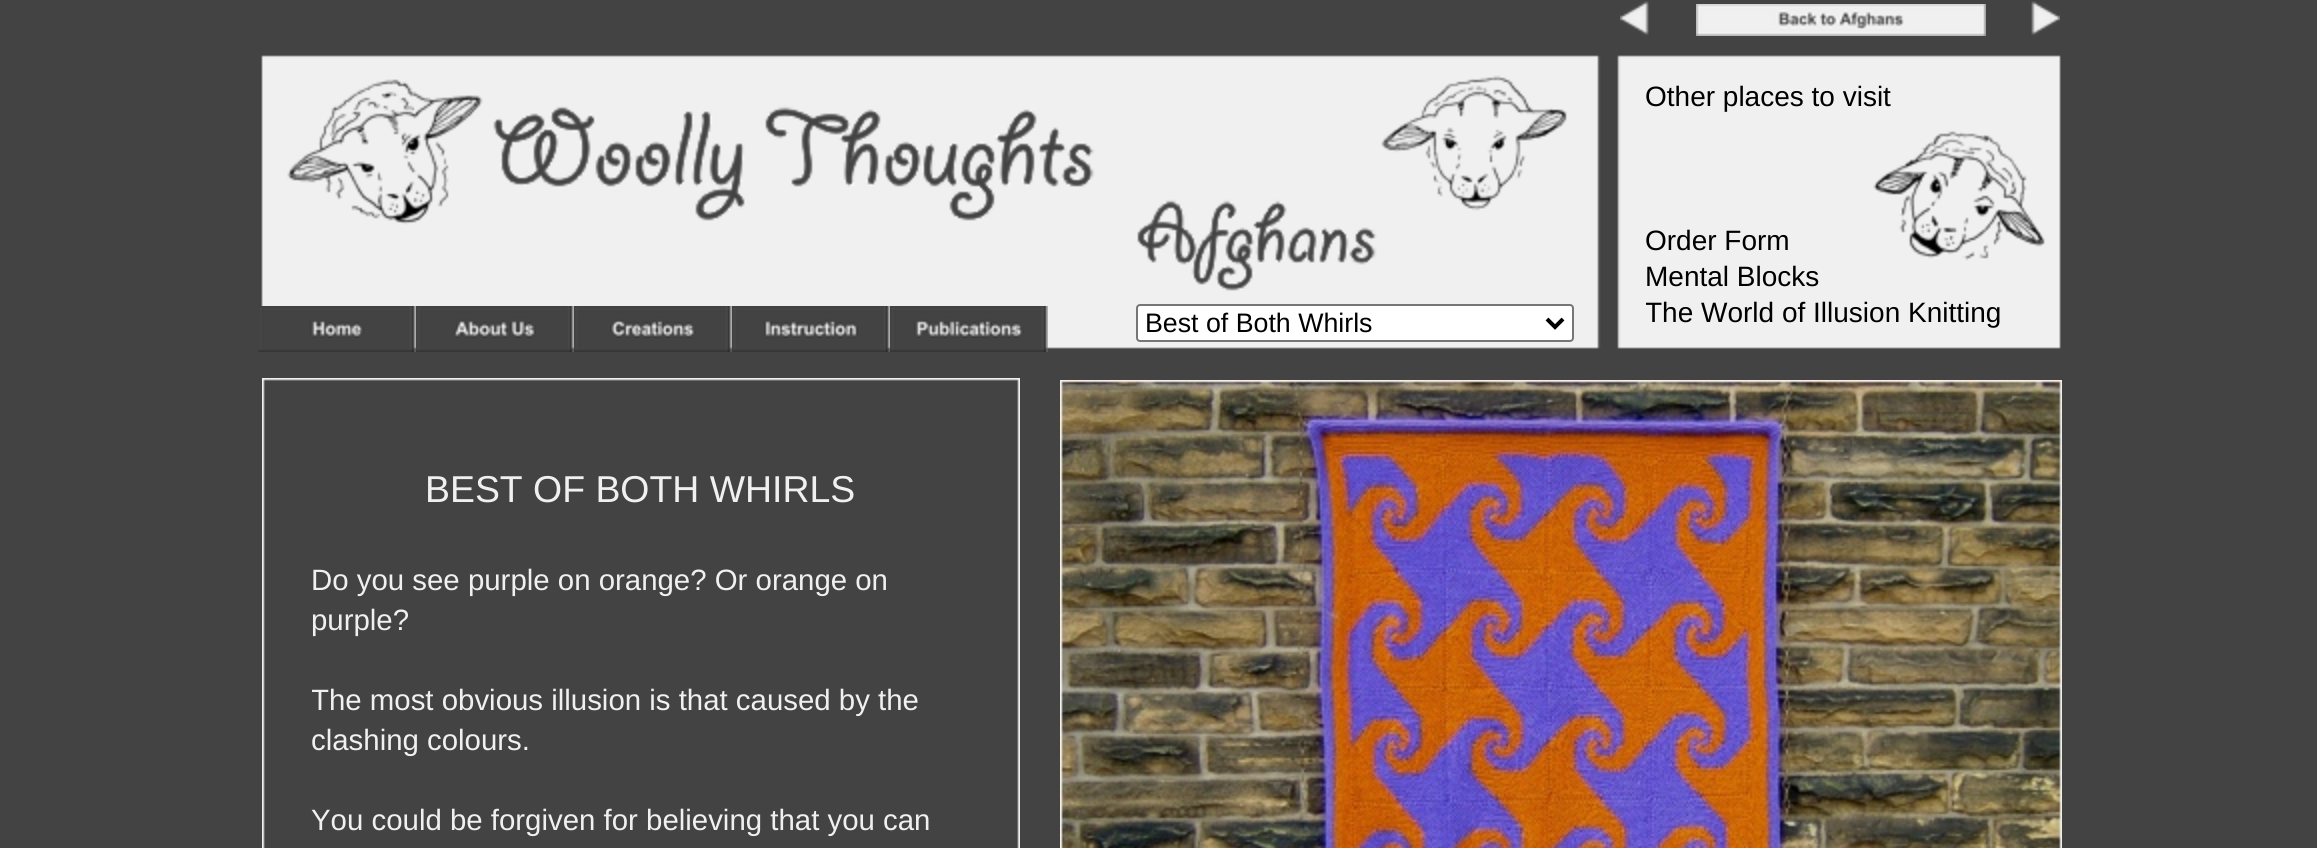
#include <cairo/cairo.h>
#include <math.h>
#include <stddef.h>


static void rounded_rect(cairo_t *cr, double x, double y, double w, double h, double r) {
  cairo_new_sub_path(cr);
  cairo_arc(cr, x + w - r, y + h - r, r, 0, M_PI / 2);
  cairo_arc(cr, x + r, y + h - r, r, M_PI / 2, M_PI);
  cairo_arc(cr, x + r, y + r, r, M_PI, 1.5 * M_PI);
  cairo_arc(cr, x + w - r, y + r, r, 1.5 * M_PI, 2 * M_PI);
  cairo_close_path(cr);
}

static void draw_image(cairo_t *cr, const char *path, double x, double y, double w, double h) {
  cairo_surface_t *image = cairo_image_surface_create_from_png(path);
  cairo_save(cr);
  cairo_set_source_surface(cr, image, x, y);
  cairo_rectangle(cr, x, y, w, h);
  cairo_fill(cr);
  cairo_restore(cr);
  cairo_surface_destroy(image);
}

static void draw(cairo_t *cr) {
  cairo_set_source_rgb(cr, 67 / 255.0, 67 / 255.0, 67 / 255.0);
  cairo_paint(cr);
  draw_image(cr, "images/1.png", 1620, 1, 29, 34);
  draw_image(cr, "images/2.png", 1696, 4, 290, 32);
  draw_image(cr, "images/3.png", 2031, 1, 29, 34);
  draw_image(cr, "images/4.png", 261, 55, 1800, 294);
  draw_image(cr, "images/5.png", 1873, 131, 172, 130);
  draw_image(cr, "images/6.png", 258, 306, 158, 46);
  draw_image(cr, "images/7.png", 416, 306, 158, 46);
  draw_image(cr, "images/8.png", 574, 306, 158, 46);
  draw_image(cr, "images/9.png", 732, 306, 158, 46);
  draw_image(cr, "images/10.png", 890, 306, 158, 46);
  cairo_set_source_rgb(cr, 1, 1, 1);
  rounded_rect(cr, 1137, 305, 436, 36, 3);
  cairo_fill_preserve(cr);
  cairo_set_source_rgb(cr, 118 / 255.0, 118 / 255.0, 118 / 255.0);
  cairo_stroke(cr);
  cairo_new_path(cr);
  cairo_move_to(cr, 1547, 319);
  cairo_line_to(cr, 1555, 327);
  cairo_line_to(cr, 1563, 319);
  cairo_set_source_rgb(cr, 0, 0, 0);
  cairo_set_line_width(cr, 4);
  cairo_stroke(cr);
  draw_image(cr, "images/11.png", 262, 378, 758, 470);
  draw_image(cr, "images/12.png", 1060, 380, 1002, 468);
  cairo_select_font_face(cr, "Liberation Sans", CAIRO_FONT_SLANT_NORMAL, CAIRO_FONT_WEIGHT_NORMAL);
  cairo_set_font_size(cr, 28);
  cairo_move_to(cr, 1645, 106);
  cairo_show_text(cr, "Other places to visit");
  cairo_move_to(cr, 1645, 250);
  cairo_show_text(cr, "Order Form");
  cairo_move_to(cr, 1645, 286);
  cairo_show_text(cr, "Mental Blocks");
  cairo_save(cr);
  cairo_rectangle(cr, 1646, 78, 396, 268);
  cairo_clip(cr);
  cairo_move_to(cr, 1645, 322);
  cairo_show_text(cr, "The World of Illusion Knitting");
  cairo_restore(cr);
  cairo_set_font_size(cr, 26.75);
  cairo_move_to(cr, 1145, 332);
  cairo_show_text(cr, "Best of Both Whirls");
  cairo_set_font_size(cr, 37.4);
  cairo_set_source_rgb(cr, 240 / 255.0, 240 / 255.0, 240 / 255.0);
  cairo_move_to(cr, 425, 502);
  cairo_show_text(cr, "BEST OF BOTH WHIRLS");
  cairo_set_font_size(cr, 29.4);
  cairo_move_to(cr, 311, 590);
  cairo_show_text(cr, "Do you see purple on orange? Or orange on");
  cairo_move_to(cr, 311, 630);
  cairo_show_text(cr, "purple?");
  cairo_save(cr);
  cairo_rectangle(cr, 312, 422, 658, 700);
  cairo_clip(cr);
  cairo_move_to(cr, 311, 710);
  cairo_show_text(cr, "The most obvious illusion is that caused by the");
  cairo_restore(cr);
  cairo_move_to(cr, 311, 750);
  cairo_show_text(cr, "clashing colours.");
  cairo_move_to(cr, 311, 830);
  cairo_show_text(cr, "You could be forgiven for believing that you can");
}

int main(void) {
  cairo_surface_t *surface = cairo_image_surface_create(CAIRO_FORMAT_RGB24, 2317, 848);
  cairo_t *cr = cairo_create(surface);
  cairo_font_options_t *options = cairo_font_options_create();
  cairo_font_options_set_hint_metrics(options, CAIRO_HINT_METRICS_OFF);
  cairo_font_options_set_hint_style(options, CAIRO_HINT_STYLE_NONE);
  cairo_set_font_options(cr, options);
  cairo_set_miter_limit(cr, 4);
  draw(cr);
  cairo_surface_write_to_png(surface, "out.png");
  cairo_font_options_destroy(options);
  cairo_destroy(cr);
  cairo_surface_destroy(surface);
  return 0;
}
